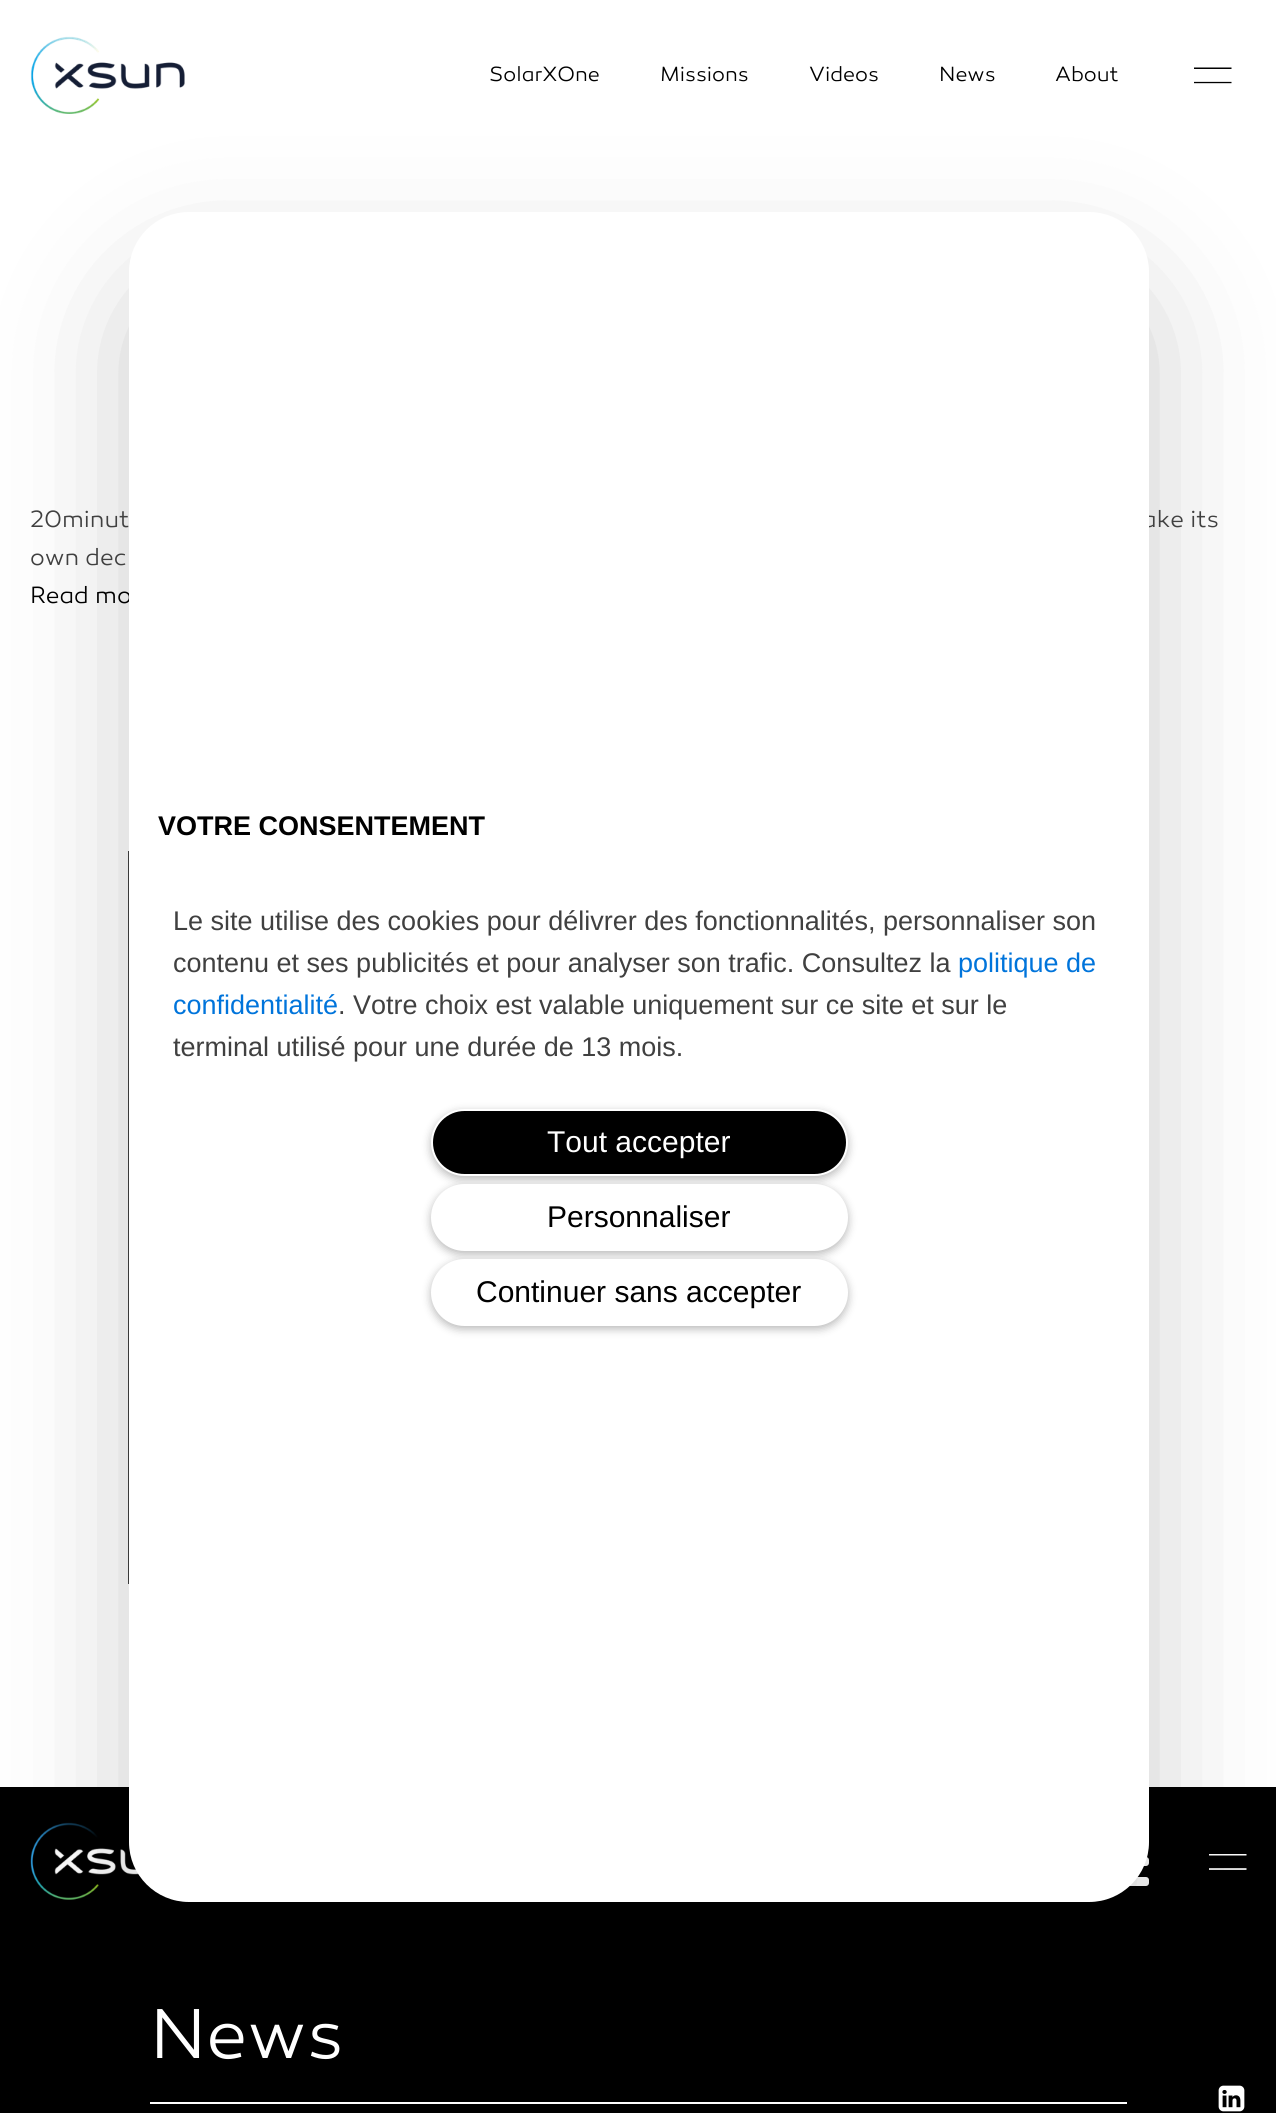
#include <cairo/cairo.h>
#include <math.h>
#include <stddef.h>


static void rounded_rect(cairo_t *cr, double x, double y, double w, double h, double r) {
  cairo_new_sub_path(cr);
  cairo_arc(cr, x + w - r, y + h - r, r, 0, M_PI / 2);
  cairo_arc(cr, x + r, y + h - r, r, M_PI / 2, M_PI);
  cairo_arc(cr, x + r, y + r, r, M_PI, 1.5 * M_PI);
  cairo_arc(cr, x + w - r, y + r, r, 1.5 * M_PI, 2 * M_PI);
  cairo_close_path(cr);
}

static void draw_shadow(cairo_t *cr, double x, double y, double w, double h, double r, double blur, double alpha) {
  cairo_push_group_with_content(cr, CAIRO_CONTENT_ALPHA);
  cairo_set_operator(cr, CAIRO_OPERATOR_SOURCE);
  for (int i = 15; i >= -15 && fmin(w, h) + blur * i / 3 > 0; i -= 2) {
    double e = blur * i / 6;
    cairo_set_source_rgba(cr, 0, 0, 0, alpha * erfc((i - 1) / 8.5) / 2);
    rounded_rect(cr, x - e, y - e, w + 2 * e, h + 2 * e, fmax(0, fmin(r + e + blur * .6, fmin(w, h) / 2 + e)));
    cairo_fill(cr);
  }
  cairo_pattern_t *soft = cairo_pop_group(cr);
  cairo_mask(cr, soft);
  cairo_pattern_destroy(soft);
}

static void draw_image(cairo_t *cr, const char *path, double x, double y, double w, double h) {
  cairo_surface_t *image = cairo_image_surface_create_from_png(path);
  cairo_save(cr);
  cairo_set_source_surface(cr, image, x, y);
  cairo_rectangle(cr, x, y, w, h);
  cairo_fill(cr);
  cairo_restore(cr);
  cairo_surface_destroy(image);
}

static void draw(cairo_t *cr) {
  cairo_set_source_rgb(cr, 1, 1, 1);
  cairo_paint(cr);
  draw_image(cr, "images/1.png", 30, 36, 155, 78);
  draw_image(cr, "images/2.png", 1194, 67, 38, 17);
  cairo_rectangle(cr, 129, 852, 502, 731);
  cairo_set_source_rgb(cr, 64 / 255.0, 64 / 255.0, 64 / 255.0);
  cairo_stroke(cr);
  cairo_set_source_rgb(cr, 0, 0, 0);
  cairo_rectangle(cr, 0, 1787, 1276, 326);
  cairo_fill(cr);
  draw_image(cr, "images/3.png", 30, 1822, 109, 78);
  cairo_set_source_rgb(cr, 1, 1, 1);
  rounded_rect(cr, 1089, 1857, 60, 9, 3);
  cairo_fill(cr);
  rounded_rect(cr, 1089, 1877, 60, 9, 3);
  cairo_fill(cr);
  draw_image(cr, "images/4.png", 1209, 1854, 38, 16);
  cairo_rectangle(cr, 150, 2102, 977, 2);
  cairo_fill(cr);
  draw_image(cr, "images/5.png", 1218, 2085, 27, 27);
  cairo_set_source_rgb(cr, 0, 0, 0);
  draw_shadow(cr, 129, 275, 1020, 1690, 60, 64, 0.2);
  cairo_select_font_face(cr, "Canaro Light", CAIRO_FONT_SLANT_NORMAL, CAIRO_FONT_WEIGHT_NORMAL);
  cairo_set_font_size(cr, 21);
  cairo_set_source_rgb(cr, 0, 0, 0);
  cairo_move_to(cr, 489, 81);
  cairo_show_text(cr, "SolarXOne");
  cairo_move_to(cr, 660, 81);
  cairo_show_text(cr, "Missions");
  cairo_move_to(cr, 809, 81);
  cairo_show_text(cr, "Videos");
  cairo_move_to(cr, 939, 81);
  cairo_show_text(cr, "News");
  cairo_move_to(cr, 1055, 81);
  cairo_show_text(cr, "About");
  cairo_set_font_size(cr, 24);
  cairo_set_source_rgb(cr, 64 / 255.0, 64 / 255.0, 64 / 255.0);
  cairo_move_to(cr, 30, 527);
  cairo_show_text(cr, "20minut");
  cairo_move_to(cr, 1142, 527);
  cairo_show_text(cr, "ake its");
  cairo_move_to(cr, 30, 565);
  cairo_show_text(cr, "own dec");
  cairo_set_source_rgb(cr, 0, 0, 0);
  cairo_move_to(cr, 30, 603);
  cairo_show_text(cr, "Read mo");
  cairo_set_source_rgb(cr, 1, 1, 1);
  rounded_rect(cr, 129, 212, 1020, 1690, 60);
  cairo_fill(cr);
  cairo_select_font_face(cr, "Liberation Sans", CAIRO_FONT_SLANT_NORMAL, CAIRO_FONT_WEIGHT_BOLD);
  cairo_set_font_size(cr, 27);
  cairo_set_source_rgb(cr, 0, 0, 0);
  cairo_move_to(cr, 158, 835);
  cairo_show_text(cr, "VOTRE CONSENTEMENT");
  cairo_select_font_face(cr, "Liberation Sans", CAIRO_FONT_SLANT_NORMAL, CAIRO_FONT_WEIGHT_NORMAL);
  cairo_set_source_rgb(cr, 64 / 255.0, 64 / 255.0, 64 / 255.0);
  cairo_move_to(cr, 173, 930);
  cairo_show_text(cr, "Le site utilise des cookies pour délivrer des fonctionnalités, personnaliser son");
  cairo_move_to(cr, 173, 972);
  cairo_show_text(cr, "contenu et ses publicités et pour analyser son trafic. Consultez la");
  cairo_set_source_rgb(cr, 0, 116 / 255.0, 219 / 255.0);
  cairo_move_to(cr, 958, 972);
  cairo_show_text(cr, "politique de");
  cairo_move_to(cr, 173, 1014);
  cairo_show_text(cr, "confidentialité");
  cairo_set_source_rgb(cr, 64 / 255.0, 64 / 255.0, 64 / 255.0);
  cairo_move_to(cr, 338, 1014);
  cairo_show_text(cr, ". Votre choix est valable uniquement sur ce site et sur le");
  cairo_move_to(cr, 173, 1056);
  cairo_show_text(cr, "terminal utilisé pour une durée de 13 mois.");
  cairo_set_source_rgb(cr, 0, 0, 0);
  draw_shadow(cr, 431, 1112, 417, 67, 33.5, 4.5, 0.28);
  cairo_set_source_rgb(cr, 0, 0, 0);
  rounded_rect(cr, 432, 1110, 415, 65, 32.5);
  cairo_fill_preserve(cr);
  cairo_set_source_rgb(cr, 1, 1, 1);
  cairo_stroke(cr);
  cairo_set_font_size(cr, 30);
  cairo_move_to(cr, 547, 1152);
  cairo_show_text(cr, "Tout accepter");
  cairo_set_source_rgb(cr, 0, 0, 0);
  draw_shadow(cr, 431, 1187, 417, 67, 33.5, 4.5, 0.28);
  cairo_set_source_rgb(cr, 1, 1, 1);
  rounded_rect(cr, 432, 1185, 415, 65, 32.5);
  cairo_fill_preserve(cr);
  cairo_stroke(cr);
  cairo_set_source_rgb(cr, 0, 0, 0);
  cairo_move_to(cr, 547, 1227);
  cairo_show_text(cr, "Personnaliser");
  cairo_set_source_rgb(cr, 0, 0, 0);
  draw_shadow(cr, 431, 1262, 417, 67, 33.5, 4.5, 0.28);
  cairo_set_source_rgb(cr, 1, 1, 1);
  rounded_rect(cr, 432, 1260, 415, 65, 32.5);
  cairo_fill_preserve(cr);
  cairo_stroke(cr);
  cairo_set_source_rgb(cr, 0, 0, 0);
  cairo_move_to(cr, 476, 1302);
  cairo_show_text(cr, "Continuer sans accepter");
  cairo_select_font_face(cr, "Canaro Light", CAIRO_FONT_SLANT_NORMAL, CAIRO_FONT_WEIGHT_NORMAL);
  cairo_set_font_size(cr, 72);
  cairo_set_source_rgb(cr, 1, 1, 1);
  cairo_move_to(cr, 150, 2058);
  cairo_show_text(cr, "News");
}

int main(void) {
  cairo_surface_t *surface = cairo_image_surface_create(CAIRO_FORMAT_RGB24, 1276, 2113);
  cairo_t *cr = cairo_create(surface);
  cairo_font_options_t *options = cairo_font_options_create();
  cairo_font_options_set_hint_metrics(options, CAIRO_HINT_METRICS_OFF);
  cairo_font_options_set_hint_style(options, CAIRO_HINT_STYLE_NONE);
  cairo_set_font_options(cr, options);
  cairo_set_miter_limit(cr, 4);
  draw(cr);
  cairo_surface_write_to_png(surface, "out.png");
  cairo_font_options_destroy(options);
  cairo_destroy(cr);
  cairo_surface_destroy(surface);
  return 0;
}
